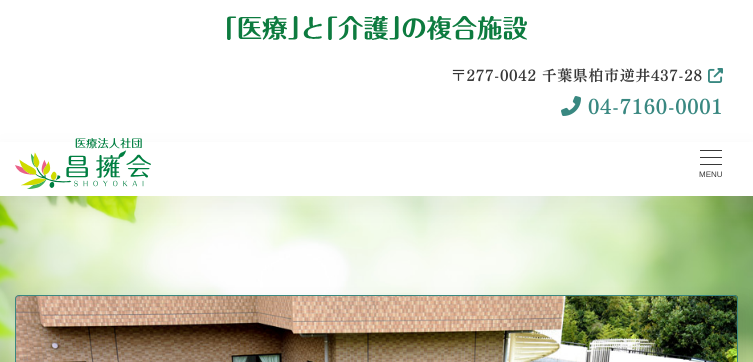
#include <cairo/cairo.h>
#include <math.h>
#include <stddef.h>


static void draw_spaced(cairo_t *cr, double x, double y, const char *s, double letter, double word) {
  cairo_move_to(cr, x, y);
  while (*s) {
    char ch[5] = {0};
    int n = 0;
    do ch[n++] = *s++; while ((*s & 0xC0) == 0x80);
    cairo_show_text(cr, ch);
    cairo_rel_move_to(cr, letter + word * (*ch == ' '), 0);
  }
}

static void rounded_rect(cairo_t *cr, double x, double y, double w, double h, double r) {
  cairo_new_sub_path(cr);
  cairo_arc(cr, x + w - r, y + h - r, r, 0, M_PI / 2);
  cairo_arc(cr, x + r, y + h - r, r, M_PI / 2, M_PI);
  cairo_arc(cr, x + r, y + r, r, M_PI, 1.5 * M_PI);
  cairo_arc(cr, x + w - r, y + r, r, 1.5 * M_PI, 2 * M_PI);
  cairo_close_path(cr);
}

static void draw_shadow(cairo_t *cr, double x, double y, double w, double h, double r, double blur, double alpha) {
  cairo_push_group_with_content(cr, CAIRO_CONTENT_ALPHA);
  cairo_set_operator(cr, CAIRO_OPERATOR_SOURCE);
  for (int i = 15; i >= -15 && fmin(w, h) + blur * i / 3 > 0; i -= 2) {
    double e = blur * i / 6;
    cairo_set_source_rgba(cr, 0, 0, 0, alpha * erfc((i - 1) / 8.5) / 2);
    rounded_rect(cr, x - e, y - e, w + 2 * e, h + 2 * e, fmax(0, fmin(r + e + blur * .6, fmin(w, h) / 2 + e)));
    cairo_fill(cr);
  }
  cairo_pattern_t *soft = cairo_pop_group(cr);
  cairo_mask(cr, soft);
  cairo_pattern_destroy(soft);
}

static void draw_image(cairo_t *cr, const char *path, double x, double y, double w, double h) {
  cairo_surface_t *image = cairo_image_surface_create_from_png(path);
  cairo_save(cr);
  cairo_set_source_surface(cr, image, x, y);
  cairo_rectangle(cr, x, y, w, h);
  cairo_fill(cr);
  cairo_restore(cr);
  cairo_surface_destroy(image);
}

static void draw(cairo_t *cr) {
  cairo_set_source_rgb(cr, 1, 1, 1);
  cairo_paint(cr);
  draw_image(cr, "images/1.png", 0, 196, 753, 166);
  draw_image(cr, "images/2.png", 227, 16, 300, 24);
  draw_image(cr, "images/3.png", 708, 68, 15, 15);
  draw_image(cr, "images/4.png", 561, 96, 20, 20);
  cairo_set_source_rgb(cr, 179 / 255.0, 179 / 255.0, 179 / 255.0);
  draw_shadow(cr, 0, 145, 753, 66, 0, 7.5, 0.1);
  cairo_set_source_rgb(cr, 1, 1, 1);
  cairo_rectangle(cr, 0, 142, 753, 54);
  cairo_fill(cr);
  draw_image(cr, "images/5.png", 15, 138, 136, 51);
  cairo_set_source_rgb(cr, 55 / 255.0, 55 / 255.0, 55 / 255.0);
  cairo_rectangle(cr, 700, 150, 22, 1);
  cairo_fill(cr);
  cairo_rectangle(cr, 700, 157, 22, 1);
  cairo_fill(cr);
  cairo_rectangle(cr, 700, 164, 22, 1);
  cairo_fill(cr);
  cairo_set_source_rgb(cr, 0, 0, 0);
  draw_shadow(cr, 25, 305, 723, 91, 4, 10, 0.1);
  draw_image(cr, "images/6.png", 15, 295, 723, 67);
  rounded_rect(cr, 15.5, 295.5, 722, 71, 3.5);
  cairo_set_source_rgb(cr, 57 / 255.0, 136 / 255.0, 129 / 255.0);
  cairo_set_line_width(cr, 1);
  cairo_stroke(cr);
  cairo_select_font_face(cr, "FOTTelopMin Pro", CAIRO_FONT_SLANT_NORMAL, CAIRO_FONT_WEIGHT_BOLD);
  cairo_set_font_size(cr, 15);
  cairo_set_source_rgb(cr, 55 / 255.0, 55 / 255.0, 55 / 255.0);
  draw_spaced(cr, 451, 81, "〒277-0042 千葉県柏市逆井437-28", 0.6, 0);
  cairo_set_font_size(cr, 20);
  cairo_set_source_rgb(cr, 57 / 255.0, 136 / 255.0, 129 / 255.0);
  draw_spaced(cr, 588, 114, "04-7160-0001", 0.6, 0);
  cairo_select_font_face(cr, "Liberation Sans", CAIRO_FONT_SLANT_NORMAL, CAIRO_FONT_WEIGHT_NORMAL);
  cairo_set_font_size(cr, 8);
  cairo_set_source_rgb(cr, 55 / 255.0, 55 / 255.0, 55 / 255.0);
  cairo_move_to(cr, 699, 177);
  cairo_show_text(cr, "MENU");
}

int main(void) {
  cairo_surface_t *surface = cairo_image_surface_create(CAIRO_FORMAT_RGB24, 753, 362);
  cairo_t *cr = cairo_create(surface);
  cairo_font_options_t *options = cairo_font_options_create();
  cairo_font_options_set_hint_metrics(options, CAIRO_HINT_METRICS_OFF);
  cairo_font_options_set_hint_style(options, CAIRO_HINT_STYLE_NONE);
  cairo_set_font_options(cr, options);
  cairo_set_miter_limit(cr, 4);
  draw(cr);
  cairo_surface_write_to_png(surface, "out.png");
  cairo_font_options_destroy(options);
  cairo_destroy(cr);
  cairo_surface_destroy(surface);
  return 0;
}
